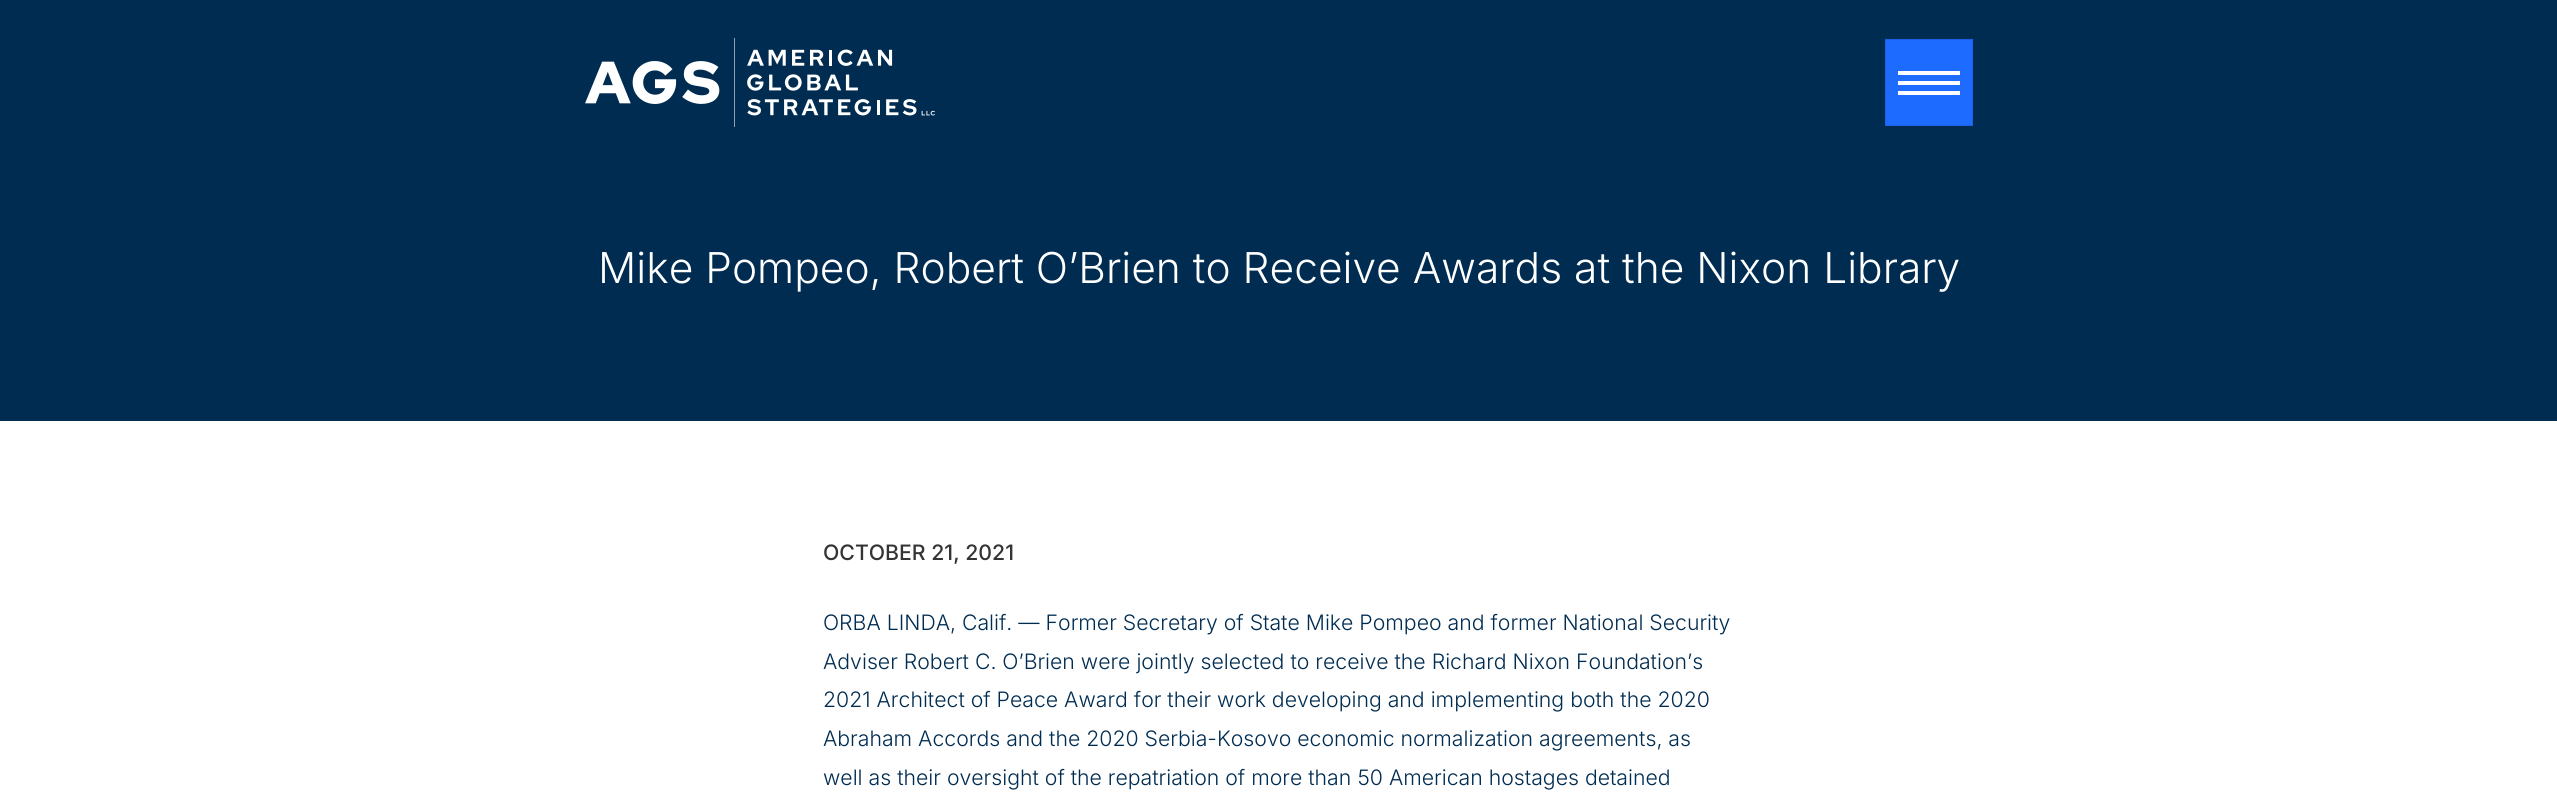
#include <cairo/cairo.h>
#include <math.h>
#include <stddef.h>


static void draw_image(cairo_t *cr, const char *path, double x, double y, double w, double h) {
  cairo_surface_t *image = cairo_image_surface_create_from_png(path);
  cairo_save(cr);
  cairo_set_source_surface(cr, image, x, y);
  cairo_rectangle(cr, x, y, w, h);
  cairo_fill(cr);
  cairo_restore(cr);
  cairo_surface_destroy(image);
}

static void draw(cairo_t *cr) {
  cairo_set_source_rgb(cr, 1, 1, 1);
  cairo_paint(cr);
  cairo_set_source_rgb(cr, 0, 44 / 255.0, 81 / 255.0);
  cairo_rectangle(cr, 0, 0, 2557, 421);
  cairo_fill(cr);
  draw_image(cr, "images/1.png", 585, 38, 350, 89);
  cairo_set_source_rgb(cr, 29 / 255.0, 108 / 255.0, 1);
  cairo_rectangle(cr, 1885.5, 39.5, 87, 86);
  cairo_fill_preserve(cr);
  cairo_set_source_rgb(cr, 26 / 255.0, 97 / 255.0, 230 / 255.0);
  cairo_set_line_width(cr, 1);
  cairo_stroke(cr);
  cairo_set_source_rgb(cr, 1, 1, 1);
  cairo_rectangle(cr, 1898, 71, 62, 4);
  cairo_fill(cr);
  cairo_rectangle(cr, 1898, 81, 62, 4);
  cairo_fill(cr);
  cairo_rectangle(cr, 1898, 91, 62, 4);
  cairo_fill(cr);
  cairo_select_font_face(cr, "Inter Light", CAIRO_FONT_SLANT_NORMAL, CAIRO_FONT_WEIGHT_NORMAL);
  cairo_set_font_size(cr, 42.5);
  cairo_move_to(cr, 598, 283);
  cairo_show_text(cr, "Mike Pompeo, Robert O’Brien to Receive Awards at the Nixon Library");
  cairo_select_font_face(cr, "Inter Medium", CAIRO_FONT_SLANT_NORMAL, CAIRO_FONT_WEIGHT_NORMAL);
  cairo_set_font_size(cr, 21.25);
  cairo_set_source_rgb(cr, 52 / 255.0, 52 / 255.0, 52 / 255.0);
  cairo_move_to(cr, 823, 560);
  cairo_show_text(cr, "OCTOBER 21, 2021");
  cairo_select_font_face(cr, "Inter Light", CAIRO_FONT_SLANT_NORMAL, CAIRO_FONT_WEIGHT_NORMAL);
  cairo_set_source_rgb(cr, 0, 44 / 255.0, 81 / 255.0);
  cairo_move_to(cr, 823, 630);
  cairo_show_text(cr, "ORBA LINDA, Calif. — Former Secretary of State Mike Pompeo and former National Security");
  cairo_move_to(cr, 823, 669);
  cairo_show_text(cr, "Adviser Robert C. O’Brien were jointly selected to receive the Richard Nixon Foundation’s");
  cairo_move_to(cr, 823, 707);
  cairo_show_text(cr, "2021 Architect of Peace Award for their work developing and implementing both the 2020");
  cairo_move_to(cr, 823, 746);
  cairo_show_text(cr, "Abraham Accords and the 2020 Serbia-Kosovo economic normalization agreements, as");
  cairo_move_to(cr, 823, 785);
  cairo_show_text(cr, "well as their oversight of the repatriation of more than 50 American hostages detained");
}

int main(void) {
  cairo_surface_t *surface = cairo_image_surface_create(CAIRO_FORMAT_RGB24, 2557, 802);
  cairo_t *cr = cairo_create(surface);
  cairo_font_options_t *options = cairo_font_options_create();
  cairo_font_options_set_hint_metrics(options, CAIRO_HINT_METRICS_OFF);
  cairo_font_options_set_hint_style(options, CAIRO_HINT_STYLE_NONE);
  cairo_set_font_options(cr, options);
  cairo_set_miter_limit(cr, 4);
  draw(cr);
  cairo_surface_write_to_png(surface, "out.png");
  cairo_font_options_destroy(options);
  cairo_destroy(cr);
  cairo_surface_destroy(surface);
  return 0;
}
